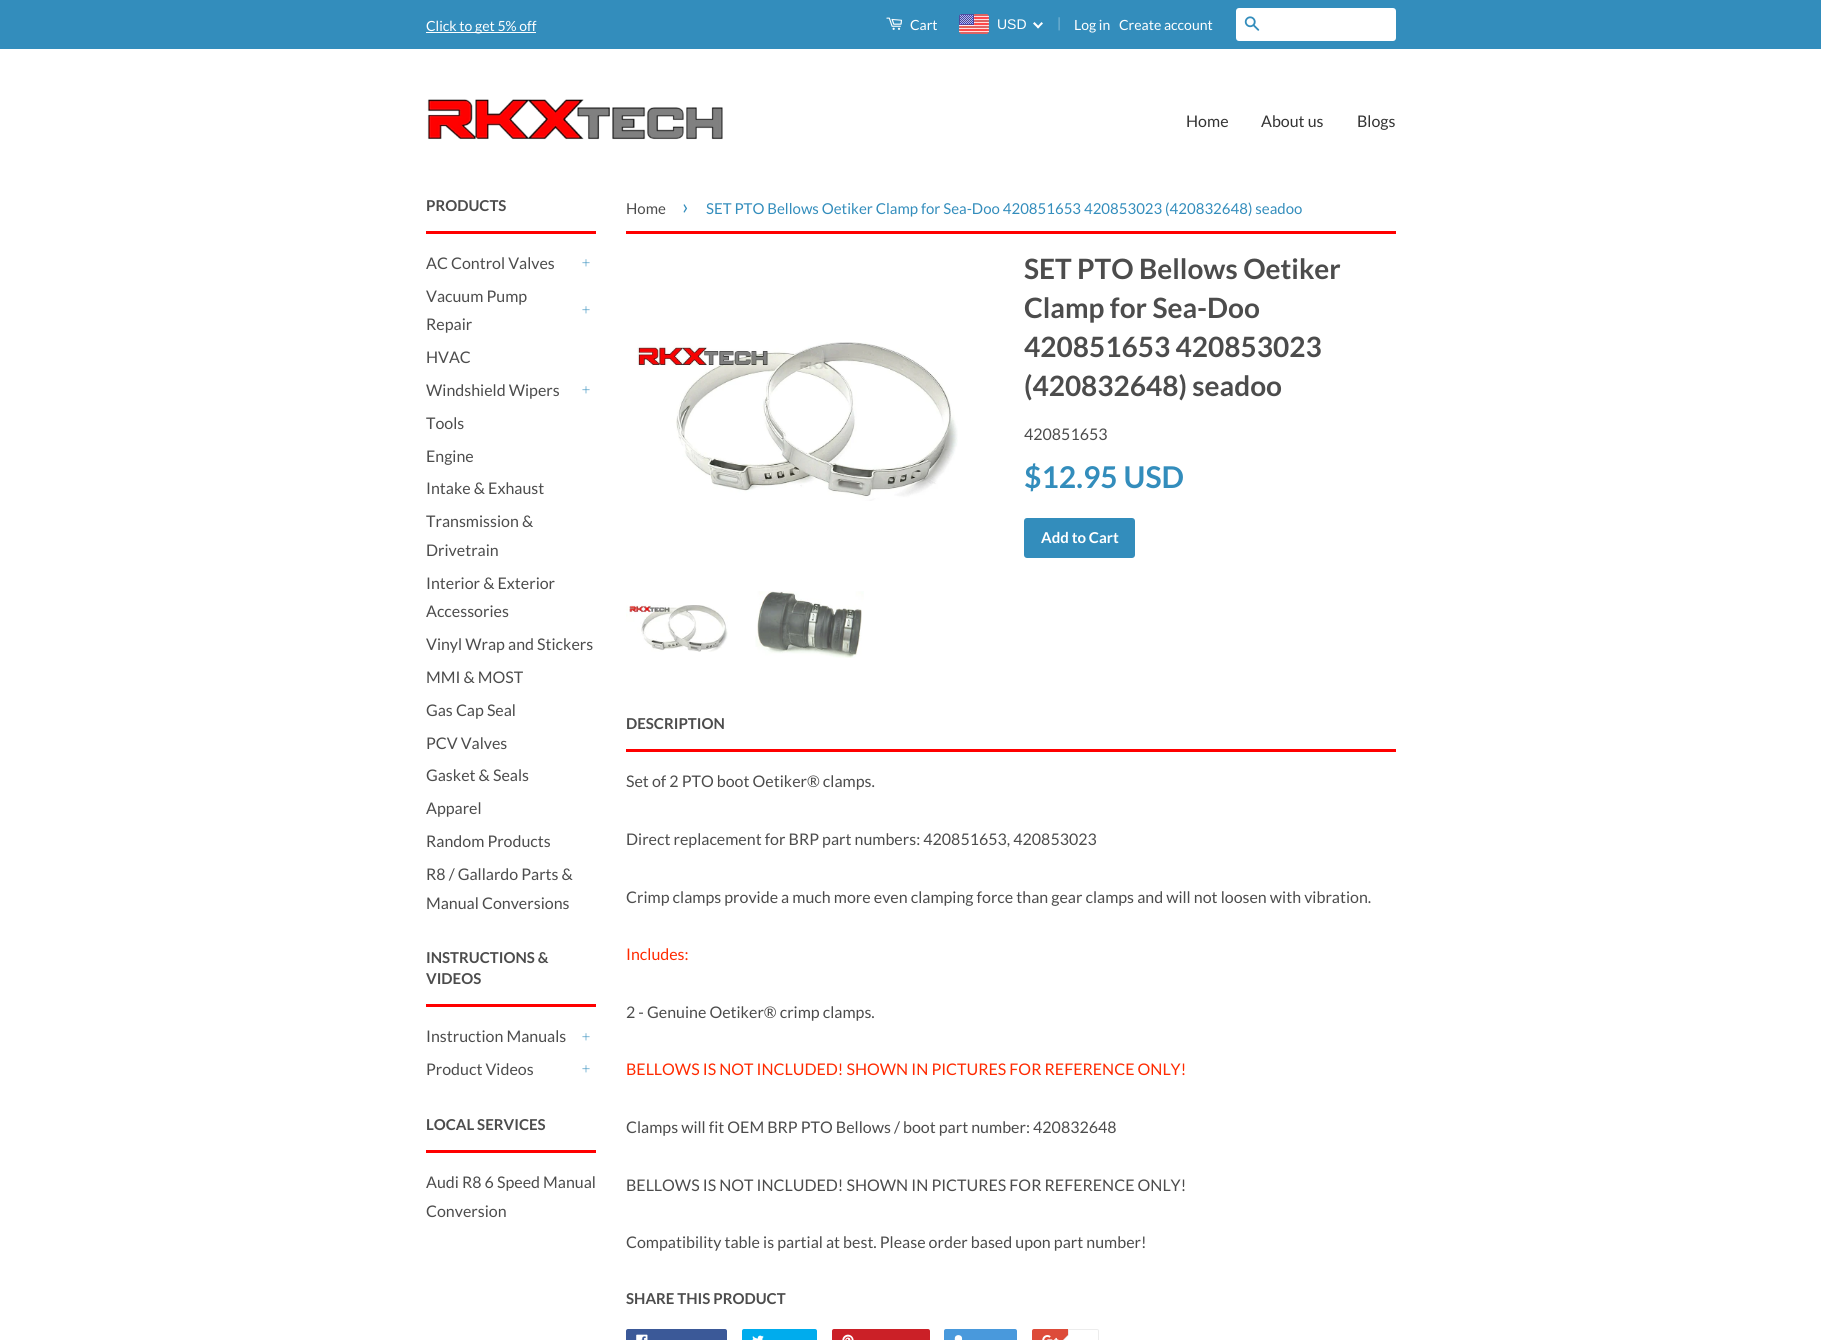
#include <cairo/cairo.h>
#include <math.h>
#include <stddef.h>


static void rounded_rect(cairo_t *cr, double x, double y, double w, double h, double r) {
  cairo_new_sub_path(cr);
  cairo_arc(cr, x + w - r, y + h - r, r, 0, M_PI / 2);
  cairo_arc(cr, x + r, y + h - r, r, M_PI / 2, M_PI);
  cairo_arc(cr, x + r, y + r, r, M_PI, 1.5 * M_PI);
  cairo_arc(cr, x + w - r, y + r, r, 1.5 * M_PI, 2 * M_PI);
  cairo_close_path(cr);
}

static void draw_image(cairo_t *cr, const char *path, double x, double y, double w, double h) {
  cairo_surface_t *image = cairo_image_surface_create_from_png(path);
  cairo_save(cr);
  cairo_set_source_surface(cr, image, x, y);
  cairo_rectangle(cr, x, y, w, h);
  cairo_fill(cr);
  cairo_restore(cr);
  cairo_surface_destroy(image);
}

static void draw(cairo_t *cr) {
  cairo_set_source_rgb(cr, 1, 1, 1);
  cairo_paint(cr);
  cairo_set_source_rgb(cr, 51 / 255.0, 141 / 255.0, 188 / 255.0);
  cairo_rectangle(cr, 0, 0, 1821, 49);
  cairo_fill(cr);
  cairo_set_source_rgb(cr, 1, 1, 1);
  cairo_rectangle(cr, 426, 32, 110, 1);
  cairo_fill(cr);
  draw_image(cr, "images/1.png", 886, 17, 16, 13);
  draw_image(cr, "images/2.png", 959, 14, 30, 20);
  cairo_new_path(cr);
  cairo_move_to(cr, 1041.5, 22);
  cairo_line_to(cr, 1043, 23.5);
  cairo_line_to(cr, 1038, 28.5);
  cairo_line_to(cr, 1037, 27);
  cairo_close_path(cr);
  cairo_fill(cr);
  cairo_new_path(cr);
  cairo_move_to(cr, 1034.5, 22);
  cairo_line_to(cr, 1039.5, 27);
  cairo_line_to(cr, 1038, 28.5);
  cairo_line_to(cr, 1033, 23.5);
  cairo_close_path(cr);
  cairo_fill(cr);
  rounded_rect(cr, 1236, 8, 160, 33, 3);
  cairo_fill(cr);
  draw_image(cr, "images/3.png", 1244, 16, 16, 15);
  draw_image(cr, "images/4.png", 427, 99, 296, 41);
  cairo_set_source_rgb(cr, 1, 0, 0);
  cairo_rectangle(cr, 426, 231, 170, 3);
  cairo_fill(cr);
  draw_image(cr, "images/5.png", 582, 259, 8, 8);
  draw_image(cr, "images/5.png", 582, 306, 8, 8);
  draw_image(cr, "images/5.png", 582, 386, 8, 8);
  cairo_rectangle(cr, 426, 1004, 170, 3);
  cairo_fill(cr);
  draw_image(cr, "images/5.png", 582, 1033, 8, 8);
  draw_image(cr, "images/5.png", 582, 1065, 8, 8);
  cairo_rectangle(cr, 426, 1150, 170, 3);
  cairo_fill(cr);
  cairo_rectangle(cr, 626, 231, 770, 3);
  cairo_fill(cr);
  draw_image(cr, "images/6.png", 637, 342, 321, 159);
  cairo_set_source_rgb(cr, 51 / 255.0, 141 / 255.0, 188 / 255.0);
  rounded_rect(cr, 1024, 518, 111, 40, 3);
  cairo_fill(cr);
  draw_image(cr, "images/7.png", 626, 605, 102, 47);
  draw_image(cr, "images/8.png", 755, 591, 109, 67);
  cairo_set_source_rgb(cr, 1, 0, 0);
  cairo_rectangle(cr, 626, 749, 770, 3);
  cairo_fill(cr);
  cairo_set_source_rgb(cr, 59 / 255.0, 89 / 255.0, 152 / 255.0);
  rounded_rect(cr, 626, 1329, 101, 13, 2);
  cairo_fill(cr);
  draw_image(cr, "images/9.png", 636, 1334, 12, 6);
  cairo_set_source_rgb(cr, 0, 172 / 255.0, 237 / 255.0);
  rounded_rect(cr, 742, 1329, 75, 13, 2);
  cairo_fill(cr);
  draw_image(cr, "images/10.png", 752, 1335, 12, 5);
  cairo_set_source_rgb(cr, 203 / 255.0, 32 / 255.0, 39 / 255.0);
  rounded_rect(cr, 832, 1329, 98, 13, 2);
  cairo_fill(cr);
  draw_image(cr, "images/11.png", 842, 1334, 12, 6);
  cairo_set_source_rgb(cr, 73 / 255.0, 153 / 255.0, 220 / 255.0);
  rounded_rect(cr, 944, 1329, 73, 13, 2);
  cairo_fill(cr);
  draw_image(cr, "images/12.png", 954, 1335, 9, 5);
  cairo_set_source_rgb(cr, 221 / 255.0, 75 / 255.0, 57 / 255.0);
  rounded_rect(cr, 1032, 1329, 65, 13, 2);
  cairo_fill(cr);
  draw_image(cr, "images/13.png", 1042, 1335, 17, 5);
  cairo_set_source_rgb(cr, 1, 1, 1);
  cairo_new_path(cr);
  cairo_move_to(cr, 1068.5, 1329.5);
  cairo_line_to(cr, 1097, 1329.5);
  cairo_curve_to(cr, 1098, 1329.5, 1098.5, 1330, 1098.5, 1331);
  cairo_line_to(cr, 1098.5, 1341);
  cairo_curve_to(cr, 1098.5, 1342, 1098, 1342.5, 1097, 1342.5);
  cairo_line_to(cr, 1068.5, 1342.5);
  cairo_close_path(cr);
  cairo_fill_preserve(cr);
  cairo_set_source_rgb(cr, 236 / 255.0, 236 / 255.0, 236 / 255.0);
  cairo_set_line_width(cr, 1);
  cairo_stroke(cr);
  cairo_new_path(cr);
  cairo_move_to(cr, 1069, 1334);
  cairo_line_to(cr, 1069, 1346);
  cairo_line_to(cr, 1063, 1340);
  cairo_close_path(cr);
  cairo_fill(cr);
  cairo_set_source_rgb(cr, 1, 1, 1);
  cairo_new_path(cr);
  cairo_move_to(cr, 1070, 1334);
  cairo_line_to(cr, 1070, 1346);
  cairo_line_to(cr, 1064, 1340);
  cairo_close_path(cr);
  cairo_fill(cr);
  cairo_select_font_face(cr, "Lato", CAIRO_FONT_SLANT_NORMAL, CAIRO_FONT_WEIGHT_NORMAL);
  cairo_set_font_size(cr, 14);
  cairo_move_to(cr, 426, 31);
  cairo_show_text(cr, "Click to get 5% off");
  cairo_move_to(cr, 910, 30);
  cairo_show_text(cr, "Cart");
  cairo_select_font_face(cr, "Liberation Sans", CAIRO_FONT_SLANT_NORMAL, CAIRO_FONT_WEIGHT_NORMAL);
  cairo_move_to(cr, 997, 29);
  cairo_show_text(cr, "USD");
  cairo_select_font_face(cr, "Lato", CAIRO_FONT_SLANT_NORMAL, CAIRO_FONT_WEIGHT_NORMAL);
  cairo_set_source_rgb(cr, 133 / 255.0, 187 / 255.0, 215 / 255.0);
  cairo_move_to(cr, 1057, 28);
  cairo_show_text(cr, "|");
  cairo_set_source_rgb(cr, 1, 1, 1);
  cairo_move_to(cr, 1074, 30);
  cairo_show_text(cr, "Log in");
  cairo_move_to(cr, 1119, 30);
  cairo_show_text(cr, "Create account");
  cairo_set_font_size(cr, 16);
  cairo_set_source_rgb(cr, 51 / 255.0, 51 / 255.0, 51 / 255.0);
  cairo_move_to(cr, 1186, 127);
  cairo_show_text(cr, "Home");
  cairo_move_to(cr, 1261, 127);
  cairo_show_text(cr, "About us");
  cairo_move_to(cr, 1357, 127);
  cairo_show_text(cr, "Blogs");
  cairo_select_font_face(cr, "Lato", CAIRO_FONT_SLANT_NORMAL, CAIRO_FONT_WEIGHT_BOLD);
  cairo_set_font_size(cr, 15);
  cairo_set_source_rgb(cr, 76 / 255.0, 76 / 255.0, 76 / 255.0);
  cairo_move_to(cr, 426, 211);
  cairo_show_text(cr, "PRODUCTS");
  cairo_select_font_face(cr, "Lato", CAIRO_FONT_SLANT_NORMAL, CAIRO_FONT_WEIGHT_NORMAL);
  cairo_set_font_size(cr, 16);
  cairo_move_to(cr, 426, 269);
  cairo_show_text(cr, "AC Control Valves");
  cairo_move_to(cr, 426, 302);
  cairo_show_text(cr, "Vacuum Pump");
  cairo_move_to(cr, 426, 330);
  cairo_show_text(cr, "Repair");
  cairo_move_to(cr, 426, 363);
  cairo_show_text(cr, "HVAC");
  cairo_move_to(cr, 426, 396);
  cairo_show_text(cr, "Windshield Wipers");
  cairo_move_to(cr, 426, 429);
  cairo_show_text(cr, "Tools");
  cairo_move_to(cr, 426, 462);
  cairo_show_text(cr, "Engine");
  cairo_move_to(cr, 426, 494);
  cairo_show_text(cr, "Intake & Exhaust");
  cairo_move_to(cr, 426, 527);
  cairo_show_text(cr, "Transmission &");
  cairo_move_to(cr, 426, 556);
  cairo_show_text(cr, "Drivetrain");
  cairo_move_to(cr, 426, 589);
  cairo_show_text(cr, "Interior & Exterior");
  cairo_move_to(cr, 426, 617);
  cairo_show_text(cr, "Accessories");
  cairo_move_to(cr, 426, 650);
  cairo_show_text(cr, "Vinyl Wrap and Stickers");
  cairo_move_to(cr, 426, 683);
  cairo_show_text(cr, "MMI & MOST");
  cairo_move_to(cr, 426, 716);
  cairo_show_text(cr, "Gas Cap Seal");
  cairo_move_to(cr, 426, 749);
  cairo_show_text(cr, "PCV Valves");
  cairo_move_to(cr, 426, 781);
  cairo_show_text(cr, "Gasket & Seals");
  cairo_move_to(cr, 426, 814);
  cairo_show_text(cr, "Apparel");
  cairo_move_to(cr, 426, 847);
  cairo_show_text(cr, "Random Products");
  cairo_move_to(cr, 426, 880);
  cairo_show_text(cr, "R8 / Gallardo Parts &");
  cairo_move_to(cr, 426, 909);
  cairo_show_text(cr, "Manual Conversions");
  cairo_select_font_face(cr, "Lato", CAIRO_FONT_SLANT_NORMAL, CAIRO_FONT_WEIGHT_BOLD);
  cairo_set_font_size(cr, 15);
  cairo_move_to(cr, 426, 963);
  cairo_show_text(cr, "INSTRUCTIONS &");
  cairo_move_to(cr, 426, 984);
  cairo_show_text(cr, "VIDEOS");
  cairo_select_font_face(cr, "Lato", CAIRO_FONT_SLANT_NORMAL, CAIRO_FONT_WEIGHT_NORMAL);
  cairo_set_font_size(cr, 16);
  cairo_move_to(cr, 426, 1042);
  cairo_show_text(cr, "Instruction Manuals");
  cairo_move_to(cr, 426, 1075);
  cairo_show_text(cr, "Product Videos");
  cairo_select_font_face(cr, "Lato", CAIRO_FONT_SLANT_NORMAL, CAIRO_FONT_WEIGHT_BOLD);
  cairo_set_font_size(cr, 15);
  cairo_move_to(cr, 426, 1130);
  cairo_show_text(cr, "LOCAL SERVICES");
  cairo_select_font_face(cr, "Lato", CAIRO_FONT_SLANT_NORMAL, CAIRO_FONT_WEIGHT_NORMAL);
  cairo_set_font_size(cr, 16);
  cairo_move_to(cr, 426, 1188);
  cairo_show_text(cr, "Audi R8 6 Speed Manual");
  cairo_move_to(cr, 426, 1217);
  cairo_show_text(cr, "Conversion");
  cairo_set_font_size(cr, 15);
  cairo_move_to(cr, 626, 214);
  cairo_show_text(cr, "Home");
  cairo_set_font_size(cr, 21);
  cairo_set_source_rgb(cr, 51 / 255.0, 141 / 255.0, 188 / 255.0);
  cairo_move_to(cr, 682, 214);
  cairo_show_text(cr, "›");
  cairo_set_font_size(cr, 15);
  cairo_move_to(cr, 706, 214);
  cairo_show_text(cr, "SET PTO Bellows Oetiker Clamp for Sea-Doo 420851653 420853023 (420832648) seadoo");
  cairo_select_font_face(cr, "Lato", CAIRO_FONT_SLANT_NORMAL, CAIRO_FONT_WEIGHT_BOLD);
  cairo_set_font_size(cr, 28);
  cairo_set_source_rgb(cr, 76 / 255.0, 76 / 255.0, 76 / 255.0);
  cairo_move_to(cr, 1024, 279);
  cairo_show_text(cr, "SET PTO Bellows Oetiker");
  cairo_move_to(cr, 1024, 318);
  cairo_show_text(cr, "Clamp for Sea-Doo");
  cairo_move_to(cr, 1024, 357);
  cairo_show_text(cr, "420851653 420853023");
  cairo_move_to(cr, 1024, 396);
  cairo_show_text(cr, "(420832648) seadoo");
  cairo_select_font_face(cr, "Lato", CAIRO_FONT_SLANT_NORMAL, CAIRO_FONT_WEIGHT_NORMAL);
  cairo_set_font_size(cr, 16);
  cairo_move_to(cr, 1024, 440);
  cairo_show_text(cr, "420851653");
  cairo_select_font_face(cr, "Lato", CAIRO_FONT_SLANT_NORMAL, CAIRO_FONT_WEIGHT_BOLD);
  cairo_set_font_size(cr, 30);
  cairo_set_source_rgb(cr, 51 / 255.0, 141 / 255.0, 188 / 255.0);
  cairo_move_to(cr, 1024, 488);
  cairo_show_text(cr, "$12.95 USD");
  cairo_set_font_size(cr, 15);
  cairo_set_source_rgb(cr, 1, 1, 1);
  cairo_move_to(cr, 1041, 543);
  cairo_show_text(cr, "Add to Cart");
  cairo_set_source_rgb(cr, 76 / 255.0, 76 / 255.0, 76 / 255.0);
  cairo_move_to(cr, 626, 729);
  cairo_show_text(cr, "DESCRIPTION");
  cairo_select_font_face(cr, "Lato", CAIRO_FONT_SLANT_NORMAL, CAIRO_FONT_WEIGHT_NORMAL);
  cairo_set_font_size(cr, 16);
  cairo_move_to(cr, 626, 787);
  cairo_show_text(cr, "Set of 2 PTO boot Oetiker® clamps.");
  cairo_move_to(cr, 626, 845);
  cairo_show_text(cr, "Direct replacement for BRP part numbers: 420851653, 420853023");
  cairo_move_to(cr, 626, 903);
  cairo_show_text(cr, "Crimp clamps provide a much more even clamping force than gear clamps and will not loosen with vibration.");
  cairo_set_source_rgb(cr, 1, 42 / 255.0, 0);
  cairo_move_to(cr, 626, 960);
  cairo_show_text(cr, "Includes:");
  cairo_set_source_rgb(cr, 76 / 255.0, 76 / 255.0, 76 / 255.0);
  cairo_move_to(cr, 626, 1018);
  cairo_show_text(cr, "2 - Genuine Oetiker® crimp clamps.");
  cairo_set_source_rgb(cr, 1, 42 / 255.0, 0);
  cairo_move_to(cr, 626, 1075);
  cairo_show_text(cr, "BELLOWS IS NOT INCLUDED! SHOWN IN PICTURES FOR REFERENCE ONLY!");
  cairo_set_source_rgb(cr, 76 / 255.0, 76 / 255.0, 76 / 255.0);
  cairo_move_to(cr, 626, 1133);
  cairo_show_text(cr, "Clamps will fit OEM BRP PTO Bellows / boot part number: 420832648");
  cairo_move_to(cr, 626, 1191);
  cairo_show_text(cr, "BELLOWS IS NOT INCLUDED! SHOWN IN PICTURES FOR REFERENCE ONLY!");
  cairo_move_to(cr, 626, 1248);
  cairo_show_text(cr, "Compatibility table is partial at best. Please order based upon part number!");
  cairo_select_font_face(cr, "Lato", CAIRO_FONT_SLANT_NORMAL, CAIRO_FONT_WEIGHT_BOLD);
  cairo_set_font_size(cr, 15);
  cairo_move_to(cr, 626, 1304);
  cairo_show_text(cr, "SHARE THIS PRODUCT");
}

int main(void) {
  cairo_surface_t *surface = cairo_image_surface_create(CAIRO_FORMAT_RGB24, 1821, 1340);
  cairo_t *cr = cairo_create(surface);
  cairo_font_options_t *options = cairo_font_options_create();
  cairo_font_options_set_hint_metrics(options, CAIRO_HINT_METRICS_OFF);
  cairo_font_options_set_hint_style(options, CAIRO_HINT_STYLE_NONE);
  cairo_set_font_options(cr, options);
  cairo_set_miter_limit(cr, 4);
  draw(cr);
  cairo_surface_write_to_png(surface, "out.png");
  cairo_font_options_destroy(options);
  cairo_destroy(cr);
  cairo_surface_destroy(surface);
  return 0;
}
